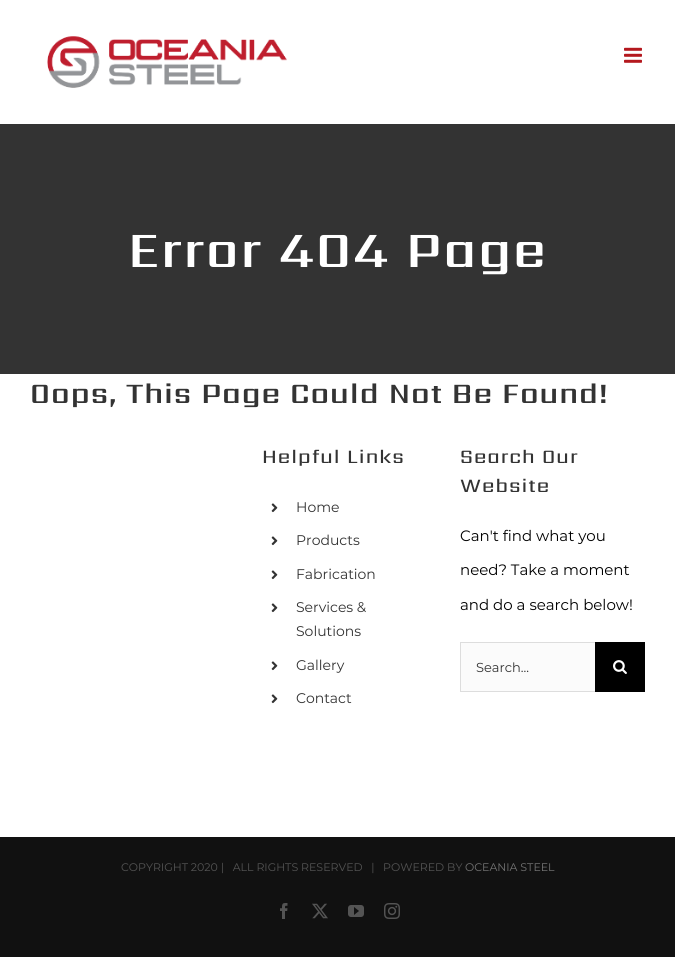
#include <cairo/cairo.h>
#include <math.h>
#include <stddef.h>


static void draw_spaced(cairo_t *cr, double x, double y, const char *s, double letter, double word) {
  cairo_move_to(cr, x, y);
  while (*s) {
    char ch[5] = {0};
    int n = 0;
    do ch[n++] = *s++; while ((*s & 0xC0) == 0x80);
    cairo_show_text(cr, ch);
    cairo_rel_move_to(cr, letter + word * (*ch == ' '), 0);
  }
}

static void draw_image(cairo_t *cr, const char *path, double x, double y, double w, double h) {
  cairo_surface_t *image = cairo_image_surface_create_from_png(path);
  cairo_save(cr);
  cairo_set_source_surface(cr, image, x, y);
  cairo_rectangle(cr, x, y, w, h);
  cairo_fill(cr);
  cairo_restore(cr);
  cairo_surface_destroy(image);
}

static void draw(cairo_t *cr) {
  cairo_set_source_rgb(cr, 1, 1, 1);
  cairo_paint(cr);
  draw_image(cr, "images/1.png", 47, 36, 240, 52);
  draw_image(cr, "images/2.png", 624, 47, 18, 16);
  cairo_set_source_rgb(cr, 51 / 255.0, 51 / 255.0, 51 / 255.0);
  cairo_rectangle(cr, 0, 124, 675, 250);
  cairo_fill(cr);
  draw_image(cr, "images/3.png", 271, 503, 7, 10);
  draw_image(cr, "images/3.png", 271, 536, 7, 10);
  draw_image(cr, "images/3.png", 271, 570, 7, 10);
  draw_image(cr, "images/3.png", 271, 603, 7, 10);
  draw_image(cr, "images/3.png", 271, 661, 7, 10);
  draw_image(cr, "images/3.png", 271, 694, 7, 10);
  cairo_set_source_rgb(cr, 251 / 255.0, 251 / 255.0, 251 / 255.0);
  cairo_rectangle(cr, 461, 643, 134, 48);
  cairo_fill(cr);
  cairo_set_source_rgb(cr, 221 / 255.0, 221 / 255.0, 221 / 255.0);
  cairo_rectangle(cr, 460, 642, 135, 1);
  cairo_fill(cr);
  cairo_rectangle(cr, 460, 691, 135, 1);
  cairo_fill(cr);
  cairo_rectangle(cr, 460, 642, 1, 50);
  cairo_fill(cr);
  cairo_set_source_rgb(cr, 0, 0, 0);
  cairo_rectangle(cr, 595, 642, 50, 50);
  cairo_fill(cr);
  draw_image(cr, "images/4.png", 613, 660, 14, 14);
  cairo_set_source_rgb(cr, 17 / 255.0, 17 / 255.0, 17 / 255.0);
  cairo_rectangle(cr, 0, 837, 675, 120);
  cairo_fill(cr);
  draw_image(cr, "images/5.png", 280, 903, 8, 16);
  draw_image(cr, "images/6.png", 312, 903, 16, 16);
  draw_image(cr, "images/7.png", 348, 905, 16, 12);
  draw_image(cr, "images/8.png", 384, 903, 16, 16);
  cairo_select_font_face(cr, "Sarpanch SemiBold", CAIRO_FONT_SLANT_NORMAL, CAIRO_FONT_WEIGHT_NORMAL);
  cairo_set_font_size(cr, 51.5);
  cairo_set_source_rgb(cr, 1, 1, 1);
  draw_spaced(cr, 128, 267, "Error 404 Page", 2, 0);
  cairo_set_font_size(cr, 29.25);
  cairo_set_source_rgb(cr, 51 / 255.0, 51 / 255.0, 51 / 255.0);
  draw_spaced(cr, 30, 403, "Oops, This Page Could Not Be Found!", 1, 0);
  cairo_select_font_face(cr, "Sarpanch Medium", CAIRO_FONT_SLANT_NORMAL, CAIRO_FONT_WEIGHT_NORMAL);
  cairo_set_font_size(cr, 19.75);
  draw_spaced(cr, 262, 463, "Helpful Links", 1, 0);
  cairo_select_font_face(cr, "Montserrat", CAIRO_FONT_SLANT_NORMAL, CAIRO_FONT_WEIGHT_NORMAL);
  cairo_set_font_size(cr, 14);
  cairo_move_to(cr, 296, 512);
  cairo_show_text(cr, "Home");
  cairo_move_to(cr, 296, 545);
  cairo_show_text(cr, "Products");
  cairo_move_to(cr, 296, 579);
  cairo_show_text(cr, "Fabrication");
  cairo_move_to(cr, 296, 612);
  cairo_show_text(cr, "Services &");
  cairo_move_to(cr, 296, 636);
  cairo_show_text(cr, "Solutions");
  cairo_move_to(cr, 296, 670);
  cairo_show_text(cr, "Gallery");
  cairo_move_to(cr, 296, 703);
  cairo_show_text(cr, "Contact");
  cairo_select_font_face(cr, "Sarpanch Medium", CAIRO_FONT_SLANT_NORMAL, CAIRO_FONT_WEIGHT_NORMAL);
  cairo_set_font_size(cr, 19.75);
  draw_spaced(cr, 460, 463, "Search Our", 1, 0);
  draw_spaced(cr, 460, 492, "Website", 1, 0);
  cairo_select_font_face(cr, "Montserrat", CAIRO_FONT_SLANT_NORMAL, CAIRO_FONT_WEIGHT_NORMAL);
  cairo_set_font_size(cr, 15);
  cairo_set_source_rgb(cr, 0, 0, 0);
  cairo_move_to(cr, 460, 541);
  cairo_show_text(cr, "Can't find what you");
  cairo_move_to(cr, 460, 575);
  cairo_show_text(cr, "need? Take a moment");
  cairo_move_to(cr, 460, 610);
  cairo_show_text(cr, "and do a search below!");
  cairo_set_font_size(cr, 13);
  cairo_set_source_rgb(cr, 51 / 255.0, 51 / 255.0, 51 / 255.0);
  cairo_move_to(cr, 476, 672);
  cairo_show_text(cr, "Search...");
  cairo_set_font_size(cr, 11);
  cairo_set_source_rgb(cr, 84 / 255.0, 84 / 255.0, 84 / 255.0);
  cairo_move_to(cr, 121, 871);
  cairo_show_text(cr, "COPYRIGHT 2020 |   ALL RIGHTS RESERVED   |   POWERED BY");
  cairo_set_source_rgb(cr, 116 / 255.0, 116 / 255.0, 116 / 255.0);
  cairo_move_to(cr, 465, 871);
  cairo_show_text(cr, "OCEANIA STEEL");
}

int main(void) {
  cairo_surface_t *surface = cairo_image_surface_create(CAIRO_FORMAT_RGB24, 675, 957);
  cairo_t *cr = cairo_create(surface);
  cairo_font_options_t *options = cairo_font_options_create();
  cairo_font_options_set_hint_metrics(options, CAIRO_HINT_METRICS_OFF);
  cairo_font_options_set_hint_style(options, CAIRO_HINT_STYLE_NONE);
  cairo_set_font_options(cr, options);
  cairo_set_miter_limit(cr, 4);
  draw(cr);
  cairo_surface_write_to_png(surface, "out.png");
  cairo_font_options_destroy(options);
  cairo_destroy(cr);
  cairo_surface_destroy(surface);
  return 0;
}
